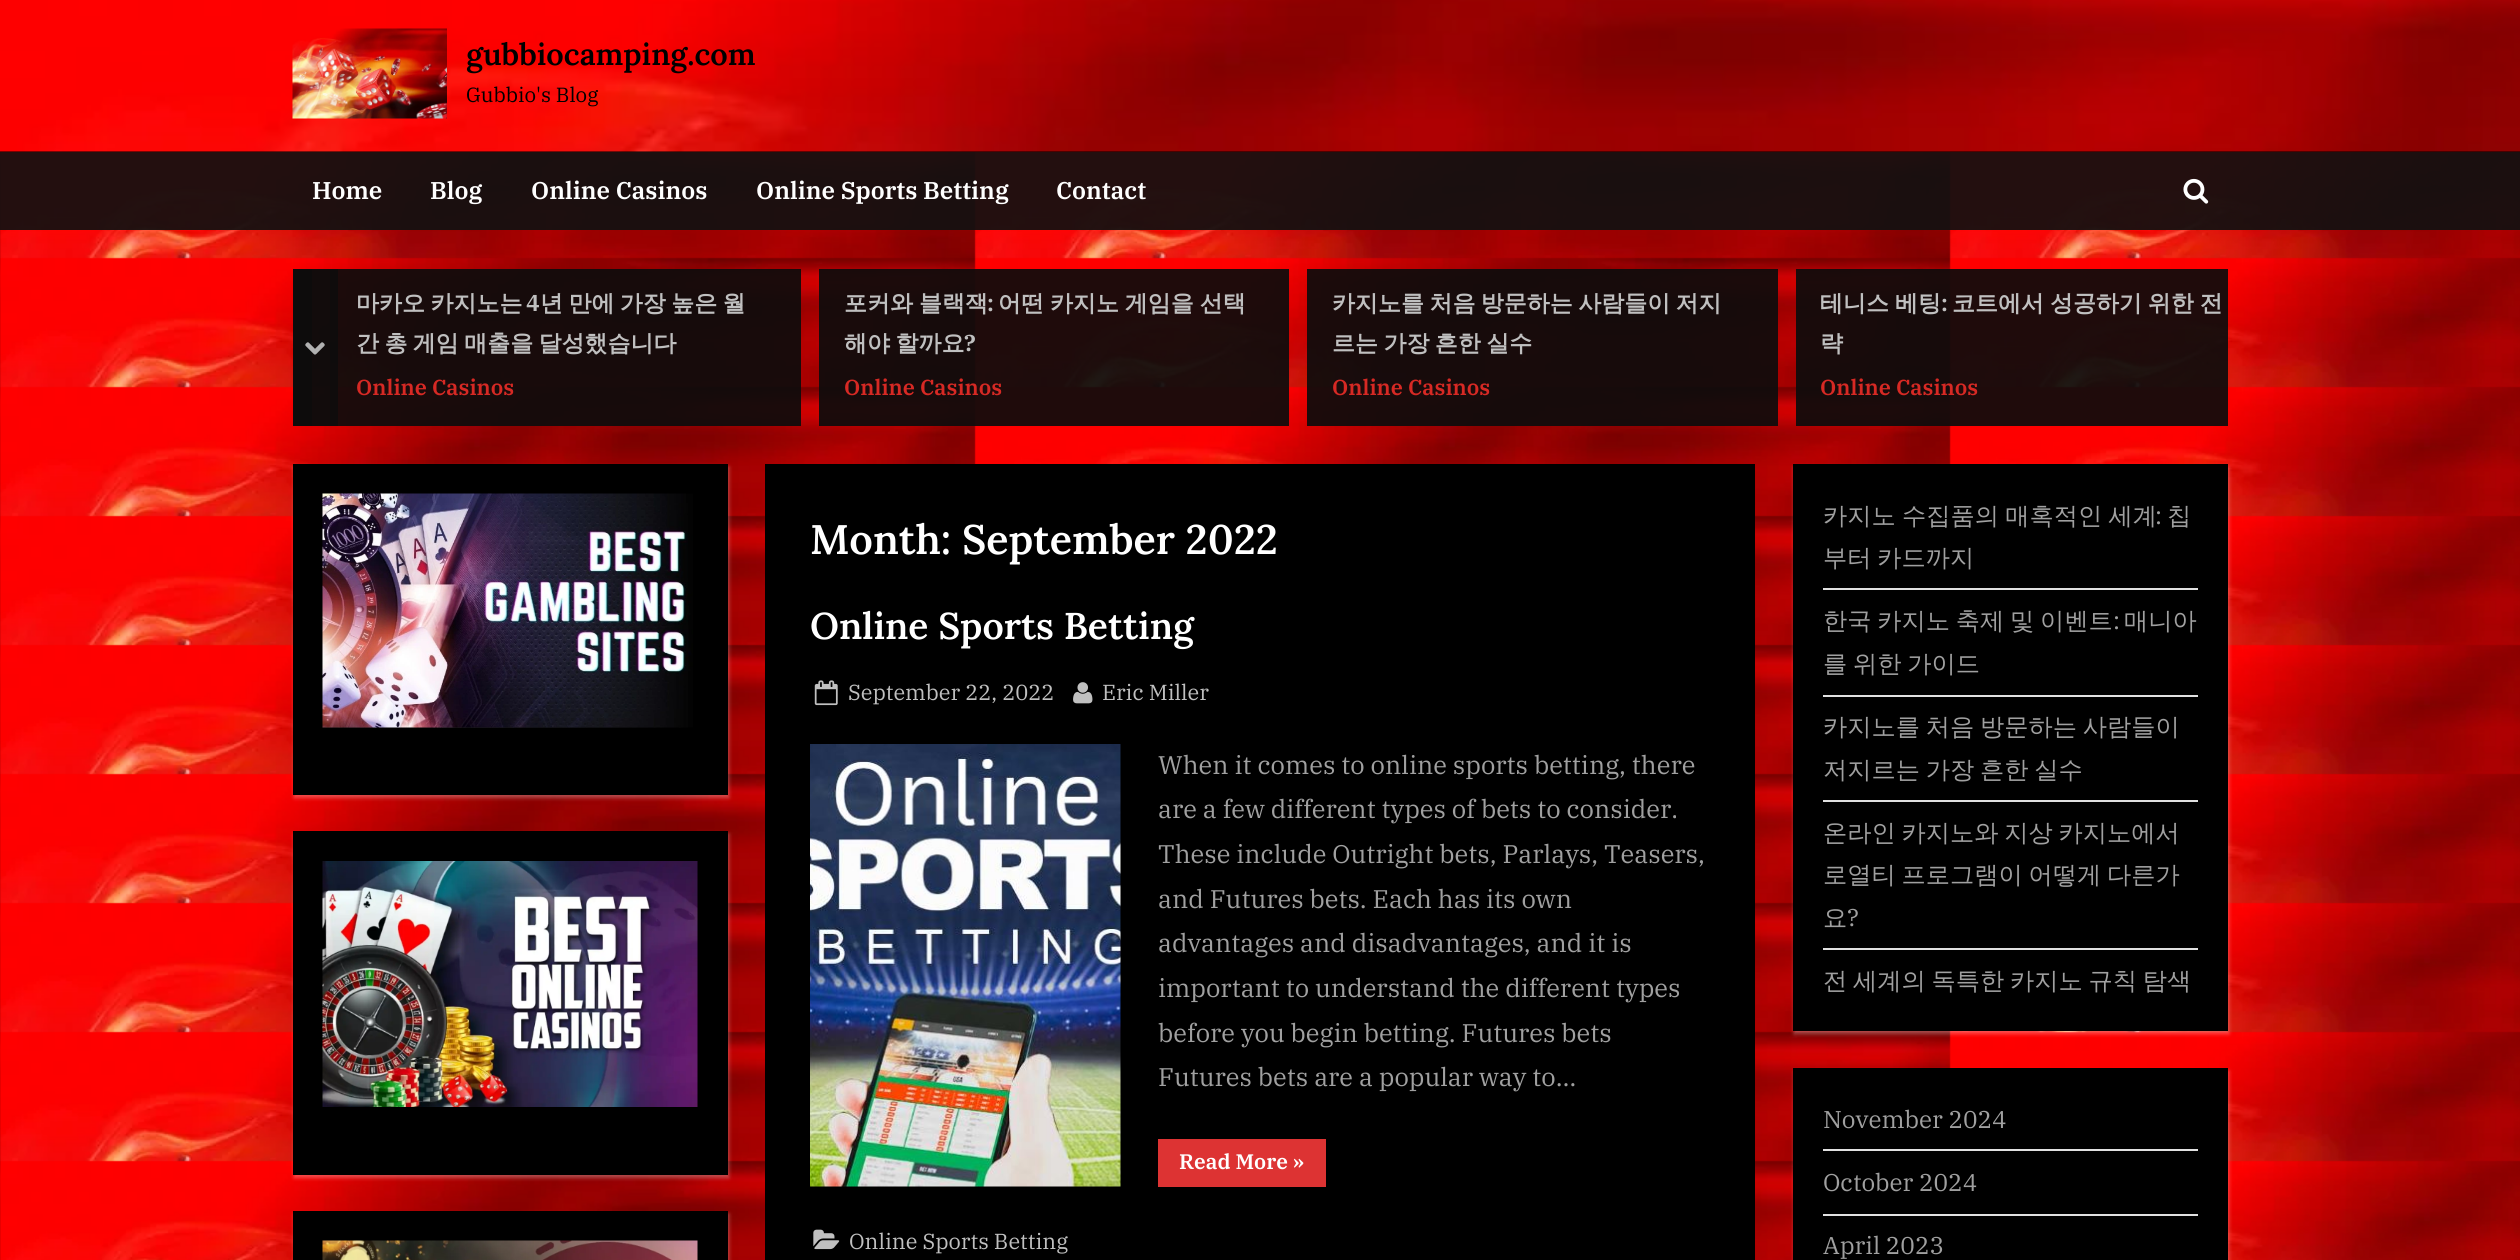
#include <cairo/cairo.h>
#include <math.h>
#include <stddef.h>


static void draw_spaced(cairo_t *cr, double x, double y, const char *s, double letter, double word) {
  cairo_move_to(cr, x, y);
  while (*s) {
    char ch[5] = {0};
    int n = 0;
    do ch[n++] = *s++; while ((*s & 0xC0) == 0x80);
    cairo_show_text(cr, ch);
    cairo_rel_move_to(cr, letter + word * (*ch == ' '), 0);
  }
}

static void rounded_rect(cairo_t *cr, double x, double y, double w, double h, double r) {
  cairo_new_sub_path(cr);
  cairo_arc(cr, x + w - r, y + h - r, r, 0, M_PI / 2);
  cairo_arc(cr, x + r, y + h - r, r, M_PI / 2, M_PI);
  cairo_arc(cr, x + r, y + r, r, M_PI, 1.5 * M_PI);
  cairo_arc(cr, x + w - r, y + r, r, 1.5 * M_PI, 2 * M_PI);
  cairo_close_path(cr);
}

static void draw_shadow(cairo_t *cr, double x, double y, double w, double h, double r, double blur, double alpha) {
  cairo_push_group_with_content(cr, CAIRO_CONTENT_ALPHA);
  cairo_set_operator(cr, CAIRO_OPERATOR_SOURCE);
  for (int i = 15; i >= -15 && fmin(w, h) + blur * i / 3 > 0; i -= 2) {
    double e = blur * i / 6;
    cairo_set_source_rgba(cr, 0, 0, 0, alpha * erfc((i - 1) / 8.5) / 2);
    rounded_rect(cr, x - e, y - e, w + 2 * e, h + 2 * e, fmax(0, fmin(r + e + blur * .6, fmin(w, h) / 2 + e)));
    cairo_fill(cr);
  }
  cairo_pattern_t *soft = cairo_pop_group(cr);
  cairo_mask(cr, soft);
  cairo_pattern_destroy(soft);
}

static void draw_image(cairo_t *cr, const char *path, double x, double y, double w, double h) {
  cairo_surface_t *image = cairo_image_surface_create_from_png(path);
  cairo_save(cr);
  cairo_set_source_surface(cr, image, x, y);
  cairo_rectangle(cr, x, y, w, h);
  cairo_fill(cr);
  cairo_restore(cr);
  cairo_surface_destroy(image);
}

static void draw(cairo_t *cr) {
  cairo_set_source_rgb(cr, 1, 1, 1);
  cairo_paint(cr);
  draw_image(cr, "images/1.png", 0, 152, 2520, 1108);
  cairo_set_source_rgb(cr, 0, 0, 0);
  cairo_rectangle(cr, 0, 151, 2520, 1);
  cairo_fill(cr);
  draw_image(cr, "images/2.png", 0, 0, 2520, 152);
  draw_image(cr, "images/3.png", 292, 28, 155, 91);
  cairo_set_source_rgba(cr, 17 / 255.0, 17 / 255.0, 17 / 255.0, 0.92);
  cairo_rectangle(cr, 0, 152, 2520, 78);
  cairo_fill(cr);
  draw_image(cr, "images/4.png", 2183, 178, 26, 26);
  cairo_set_source_rgba(cr, 12 / 255.0, 12 / 255.0, 12 / 255.0, 0.92);
  cairo_rectangle(cr, 293, 269, 19, 157);
  cairo_fill(cr);
  cairo_rectangle(cr, 330, 269, 471, 157);
  cairo_fill(cr);
  cairo_set_source_rgba(cr, 12 / 255.0, 12 / 255.0, 12 / 255.0, 0.83);
  cairo_rectangle(cr, 293, 269, 45, 157);
  cairo_fill(cr);
  draw_image(cr, "images/5.png", 305, 342, 20, 13);
  cairo_rectangle(cr, 293, 269, 37, 157);
  cairo_fill(cr);
  draw_image(cr, "images/6.png", 305, 342, 20, 13);
  cairo_set_source_rgba(cr, 12 / 255.0, 12 / 255.0, 12 / 255.0, 0.92);
  cairo_rectangle(cr, 819, 269, 470, 157);
  cairo_fill(cr);
  cairo_rectangle(cr, 1307, 269, 471, 157);
  cairo_fill(cr);
  cairo_rectangle(cr, 1796, 269, 432, 157);
  cairo_fill(cr);
  cairo_set_source_rgb(cr, 1, 1, 1);
  draw_shadow(cr, 294, 467, 435, 331, 0, 2, 0.3);
  cairo_set_source_rgb(cr, 0, 0, 0);
  cairo_rectangle(cr, 293, 464, 435, 331);
  cairo_fill(cr);
  draw_image(cr, "images/7.png", 322, 493, 371, 235);
  cairo_set_source_rgb(cr, 1, 1, 1);
  draw_shadow(cr, 294, 834, 435, 344, 0, 2, 0.3);
  cairo_set_source_rgb(cr, 0, 0, 0);
  cairo_rectangle(cr, 293, 831, 435, 344);
  cairo_fill(cr);
  draw_image(cr, "images/8.png", 322, 861, 376, 246);
  cairo_set_source_rgb(cr, 1, 1, 1);
  draw_shadow(cr, 294, 1214, 435, 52, 0, 2, 0.3);
  cairo_set_source_rgb(cr, 0, 0, 0);
  cairo_rectangle(cr, 293, 1211, 435, 49);
  cairo_fill(cr);
  draw_image(cr, "images/9.png", 322, 1240, 376, 20);
  cairo_rectangle(cr, 765, 464, 990, 796);
  cairo_fill(cr);
  draw_image(cr, "images/10.png", 814, 680, 24, 26);
  draw_image(cr, "images/11.png", 1073, 682, 20, 22);
  draw_image(cr, "images/12.png", 810, 744, 311, 443);
  cairo_set_source_rgb(cr, 221 / 255.0, 51 / 255.0, 51 / 255.0);
  cairo_rectangle(cr, 1158, 1139, 168, 48);
  cairo_fill(cr);
  draw_image(cr, "images/13.png", 813, 1229, 27, 21);
  cairo_set_source_rgb(cr, 1, 1, 1);
  draw_shadow(cr, 1794, 467, 435, 567, 0, 2, 0.3);
  cairo_set_source_rgb(cr, 0, 0, 0);
  cairo_rectangle(cr, 1793, 464, 435, 567);
  cairo_fill(cr);
  cairo_set_source_rgb(cr, 225 / 255.0, 225 / 255.0, 225 / 255.0);
  cairo_rectangle(cr, 1823, 588, 375, 2);
  cairo_fill(cr);
  cairo_rectangle(cr, 1823, 695, 375, 2);
  cairo_fill(cr);
  cairo_rectangle(cr, 1823, 800, 375, 2);
  cairo_fill(cr);
  cairo_rectangle(cr, 1823, 948, 375, 2);
  cairo_fill(cr);
  cairo_set_source_rgb(cr, 1, 1, 1);
  draw_shadow(cr, 1794, 1071, 435, 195, 0, 2, 0.3);
  cairo_set_source_rgb(cr, 0, 0, 0);
  cairo_rectangle(cr, 1793, 1068, 435, 192);
  cairo_fill(cr);
  cairo_set_source_rgb(cr, 225 / 255.0, 225 / 255.0, 225 / 255.0);
  cairo_rectangle(cr, 1823, 1149, 375, 2);
  cairo_fill(cr);
  cairo_rectangle(cr, 1823, 1214, 375, 2);
  cairo_fill(cr);
  cairo_select_font_face(cr, "Lora SemiBold", CAIRO_FONT_SLANT_NORMAL, CAIRO_FONT_WEIGHT_NORMAL);
  cairo_set_font_size(cr, 30.5);
  cairo_set_source_rgb(cr, 0, 0, 0);
  cairo_move_to(cr, 466, 65);
  cairo_show_text(cr, "gubbiocamping.com");
  cairo_select_font_face(cr, "IBM Plex Serif", CAIRO_FONT_SLANT_NORMAL, CAIRO_FONT_WEIGHT_NORMAL);
  cairo_set_font_size(cr, 20.5);
  cairo_move_to(cr, 466, 102);
  cairo_show_text(cr, "Gubbio's Blog");
  cairo_select_font_face(cr, "IBM Plex Serif SemiBold", CAIRO_FONT_SLANT_NORMAL, CAIRO_FONT_WEIGHT_NORMAL);
  cairo_set_font_size(cr, 24.25);
  cairo_set_source_rgb(cr, 1, 1, 1);
  cairo_move_to(cr, 312, 199);
  cairo_show_text(cr, "Home");
  cairo_move_to(cr, 430, 199);
  cairo_show_text(cr, "Blog");
  cairo_move_to(cr, 531, 199);
  cairo_show_text(cr, "Online Casinos");
  cairo_move_to(cr, 756, 199);
  cairo_show_text(cr, "Online Sports Betting");
  cairo_move_to(cr, 1056, 199);
  cairo_show_text(cr, "Contact");
  cairo_select_font_face(cr, "WenQuanYi Zen Hei", CAIRO_FONT_SLANT_NORMAL, CAIRO_FONT_WEIGHT_BOLD);
  cairo_set_font_size(cr, 23);
  cairo_set_source_rgb(cr, 192 / 255.0, 192 / 255.0, 192 / 255.0);
  draw_spaced(cr, 356, 311, "마카오 카지노는", 0, -1.5);
  cairo_select_font_face(cr, "IBM Plex Serif SemiBold", CAIRO_FONT_SLANT_NORMAL, CAIRO_FONT_WEIGHT_NORMAL);
  cairo_move_to(cr, 526, 311);
  cairo_show_text(cr, "4");
  cairo_select_font_face(cr, "WenQuanYi Zen Hei", CAIRO_FONT_SLANT_NORMAL, CAIRO_FONT_WEIGHT_BOLD);
  draw_spaced(cr, 540, 311, "년 만에 가장 높은 월", 0, -1.5);
  draw_spaced(cr, 356, 351, "간 총 게임 매출을 달성했습니다", 0, -1.5);
  cairo_select_font_face(cr, "IBM Plex Serif SemiBold", CAIRO_FONT_SLANT_NORMAL, CAIRO_FONT_WEIGHT_NORMAL);
  cairo_set_font_size(cr, 21.75);
  cairo_set_source_rgb(cr, 215 / 255.0, 41 / 255.0, 36 / 255.0);
  cairo_move_to(cr, 356, 395);
  cairo_show_text(cr, "Online Casinos");
  cairo_select_font_face(cr, "WenQuanYi Zen Hei", CAIRO_FONT_SLANT_NORMAL, CAIRO_FONT_WEIGHT_BOLD);
  cairo_set_font_size(cr, 23);
  cairo_set_source_rgb(cr, 192 / 255.0, 192 / 255.0, 192 / 255.0);
  draw_spaced(cr, 844, 311, "포커와 블랙잭", 0, -1);
  cairo_select_font_face(cr, "IBM Plex Serif SemiBold", CAIRO_FONT_SLANT_NORMAL, CAIRO_FONT_WEIGHT_NORMAL);
  cairo_move_to(cr, 987, 311);
  cairo_show_text(cr, ":");
  cairo_select_font_face(cr, "WenQuanYi Zen Hei", CAIRO_FONT_SLANT_NORMAL, CAIRO_FONT_WEIGHT_BOLD);
  draw_spaced(cr, 998, 311, "어떤 카지노 게임을 선택", 0, -1);
  draw_spaced(cr, 844, 351, "해야 할까요", 0, -1.5);
  cairo_select_font_face(cr, "IBM Plex Serif SemiBold", CAIRO_FONT_SLANT_NORMAL, CAIRO_FONT_WEIGHT_NORMAL);
  cairo_move_to(cr, 964, 351);
  cairo_show_text(cr, "?");
  cairo_set_font_size(cr, 21.75);
  cairo_set_source_rgb(cr, 215 / 255.0, 41 / 255.0, 36 / 255.0);
  cairo_move_to(cr, 844, 395);
  cairo_show_text(cr, "Online Casinos");
  cairo_select_font_face(cr, "WenQuanYi Zen Hei", CAIRO_FONT_SLANT_NORMAL, CAIRO_FONT_WEIGHT_BOLD);
  cairo_set_font_size(cr, 23);
  cairo_set_source_rgb(cr, 192 / 255.0, 192 / 255.0, 192 / 255.0);
  draw_spaced(cr, 1332, 311, "카지노를 처음 방문하는 사람들이 저지", 0, -1.5);
  draw_spaced(cr, 1332, 351, "르는 가장 흔한 실수", 0, -1.5);
  cairo_select_font_face(cr, "IBM Plex Serif SemiBold", CAIRO_FONT_SLANT_NORMAL, CAIRO_FONT_WEIGHT_NORMAL);
  cairo_set_font_size(cr, 21.75);
  cairo_set_source_rgb(cr, 215 / 255.0, 41 / 255.0, 36 / 255.0);
  cairo_move_to(cr, 1332, 395);
  cairo_show_text(cr, "Online Casinos");
  cairo_select_font_face(cr, "WenQuanYi Zen Hei", CAIRO_FONT_SLANT_NORMAL, CAIRO_FONT_WEIGHT_BOLD);
  cairo_set_font_size(cr, 23);
  cairo_set_source_rgb(cr, 192 / 255.0, 192 / 255.0, 192 / 255.0);
  draw_spaced(cr, 1820, 311, "테니스 베팅", 0, -1);
  cairo_select_font_face(cr, "IBM Plex Serif SemiBold", CAIRO_FONT_SLANT_NORMAL, CAIRO_FONT_WEIGHT_NORMAL);
  cairo_move_to(cr, 1941, 311);
  cairo_show_text(cr, ":");
  cairo_select_font_face(cr, "WenQuanYi Zen Hei", CAIRO_FONT_SLANT_NORMAL, CAIRO_FONT_WEIGHT_BOLD);
  draw_spaced(cr, 1952, 311, "코트에서 성공하기 위한 전", 0, -1);
  cairo_move_to(cr, 1820, 351);
  cairo_show_text(cr, "략");
  cairo_select_font_face(cr, "IBM Plex Serif SemiBold", CAIRO_FONT_SLANT_NORMAL, CAIRO_FONT_WEIGHT_NORMAL);
  cairo_set_font_size(cr, 21.75);
  cairo_set_source_rgb(cr, 215 / 255.0, 41 / 255.0, 36 / 255.0);
  cairo_move_to(cr, 1820, 395);
  cairo_show_text(cr, "Online Casinos");
  cairo_select_font_face(cr, "Lora SemiBold", CAIRO_FONT_SLANT_NORMAL, CAIRO_FONT_WEIGHT_NORMAL);
  cairo_set_font_size(cr, 41.25);
  cairo_set_source_rgb(cr, 1, 1, 1);
  cairo_move_to(cr, 810, 554);
  cairo_show_text(cr, "Month: September 2022");
  cairo_set_font_size(cr, 37.25);
  cairo_move_to(cr, 810, 639);
  cairo_show_text(cr, "Online Sports Betting");
  cairo_select_font_face(cr, "IBM Plex Serif", CAIRO_FONT_SLANT_NORMAL, CAIRO_FONT_WEIGHT_NORMAL);
  cairo_set_font_size(cr, 21.75);
  cairo_set_source_rgb(cr, 192 / 255.0, 192 / 255.0, 192 / 255.0);
  cairo_move_to(cr, 848, 700);
  cairo_show_text(cr, "September 22, 2022");
  cairo_move_to(cr, 1102, 700);
  cairo_show_text(cr, "Eric Miller");
  cairo_set_font_size(cr, 25.5);
  cairo_set_source_rgb(cr, 160 / 255.0, 160 / 255.0, 160 / 255.0);
  cairo_move_to(cr, 1158, 774);
  cairo_show_text(cr, "When it comes to online sports betting, there");
  cairo_move_to(cr, 1158, 818);
  cairo_show_text(cr, "are a few different types of bets to consider.");
  cairo_move_to(cr, 1158, 863);
  cairo_show_text(cr, "These include Outright bets, Parlays, Teasers,");
  cairo_move_to(cr, 1158, 908);
  cairo_show_text(cr, "and Futures bets. Each has its own");
  cairo_move_to(cr, 1158, 952);
  cairo_show_text(cr, "advantages and disadvantages, and it is");
  cairo_move_to(cr, 1158, 997);
  cairo_show_text(cr, "important to understand the different types");
  cairo_move_to(cr, 1158, 1042);
  cairo_show_text(cr, "before you begin betting. Futures bets");
  cairo_move_to(cr, 1158, 1086);
  cairo_show_text(cr, "Futures bets are a popular way to…");
  cairo_select_font_face(cr, "IBM Plex Serif SemiBold", CAIRO_FONT_SLANT_NORMAL, CAIRO_FONT_WEIGHT_NORMAL);
  cairo_set_font_size(cr, 21);
  cairo_set_source_rgb(cr, 1, 1, 1);
  cairo_move_to(cr, 1179, 1169);
  cairo_show_text(cr, "Read More »");
  cairo_select_font_face(cr, "IBM Plex Serif", CAIRO_FONT_SLANT_NORMAL, CAIRO_FONT_WEIGHT_NORMAL);
  cairo_set_font_size(cr, 21.75);
  cairo_set_source_rgb(cr, 192 / 255.0, 192 / 255.0, 192 / 255.0);
  cairo_move_to(cr, 849, 1249);
  cairo_show_text(cr, "Online Sports Betting");
  cairo_select_font_face(cr, "WenQuanYi Zen Hei Medium", CAIRO_FONT_SLANT_NORMAL, CAIRO_FONT_WEIGHT_NORMAL);
  cairo_set_font_size(cr, 24.25);
  cairo_set_source_rgb(cr, 160 / 255.0, 160 / 255.0, 160 / 255.0);
  draw_spaced(cr, 1823, 524, "카지노 수집품의 매혹적인 세계", 0, -1);
  cairo_select_font_face(cr, "IBM Plex Serif", CAIRO_FONT_SLANT_NORMAL, CAIRO_FONT_WEIGHT_NORMAL);
  cairo_move_to(cr, 2155, 524);
  cairo_show_text(cr, ":");
  cairo_select_font_face(cr, "WenQuanYi Zen Hei Medium", CAIRO_FONT_SLANT_NORMAL, CAIRO_FONT_WEIGHT_NORMAL);
  cairo_move_to(cr, 2167, 524);
  cairo_show_text(cr, "칩");
  draw_spaced(cr, 1823, 566, "부터 카드까지", 0, -1.5);
  draw_spaced(cr, 1823, 629, "한국 카지노 축제 및 이벤트", 0, -1.5);
  cairo_select_font_face(cr, "IBM Plex Serif", CAIRO_FONT_SLANT_NORMAL, CAIRO_FONT_WEIGHT_NORMAL);
  cairo_move_to(cr, 2113, 629);
  cairo_show_text(cr, ":");
  cairo_select_font_face(cr, "WenQuanYi Zen Hei Medium", CAIRO_FONT_SLANT_NORMAL, CAIRO_FONT_WEIGHT_NORMAL);
  cairo_move_to(cr, 2124, 629);
  cairo_show_text(cr, "매니아");
  draw_spaced(cr, 1823, 672, "를 위한 가이드", 0, -1.5);
  draw_spaced(cr, 1823, 735, "카지노를 처음 방문하는 사람들이", 0, -1.5);
  draw_spaced(cr, 1823, 778, "저지르는 가장 흔한 실수", 0, -1.5);
  draw_spaced(cr, 1823, 841, "온라인 카지노와 지상 카지노에서", 0, -1.5);
  draw_spaced(cr, 1823, 883, "로열티 프로그램이 어떻게 다른가", 0, -1.5);
  cairo_move_to(cr, 1823, 926);
  cairo_show_text(cr, "요");
  cairo_select_font_face(cr, "IBM Plex Serif", CAIRO_FONT_SLANT_NORMAL, CAIRO_FONT_WEIGHT_NORMAL);
  cairo_move_to(cr, 1847, 926);
  cairo_show_text(cr, "?");
  cairo_select_font_face(cr, "WenQuanYi Zen Hei Medium", CAIRO_FONT_SLANT_NORMAL, CAIRO_FONT_WEIGHT_NORMAL);
  draw_spaced(cr, 1823, 989, "전 세계의 독특한 카지노 규칙 탐색", 0, -1.5);
  cairo_select_font_face(cr, "IBM Plex Serif", CAIRO_FONT_SLANT_NORMAL, CAIRO_FONT_WEIGHT_NORMAL);
  cairo_move_to(cr, 1823, 1128);
  cairo_show_text(cr, "November 2024");
  cairo_move_to(cr, 1823, 1191);
  cairo_show_text(cr, "October 2024");
  cairo_move_to(cr, 1823, 1254);
  cairo_show_text(cr, "April 2023");
}

int main(void) {
  cairo_surface_t *surface = cairo_image_surface_create(CAIRO_FORMAT_RGB24, 2520, 1260);
  cairo_t *cr = cairo_create(surface);
  cairo_font_options_t *options = cairo_font_options_create();
  cairo_font_options_set_hint_metrics(options, CAIRO_HINT_METRICS_OFF);
  cairo_font_options_set_hint_style(options, CAIRO_HINT_STYLE_NONE);
  cairo_set_font_options(cr, options);
  cairo_set_miter_limit(cr, 4);
  draw(cr);
  cairo_surface_write_to_png(surface, "out.png");
  cairo_font_options_destroy(options);
  cairo_destroy(cr);
  cairo_surface_destroy(surface);
  return 0;
}
